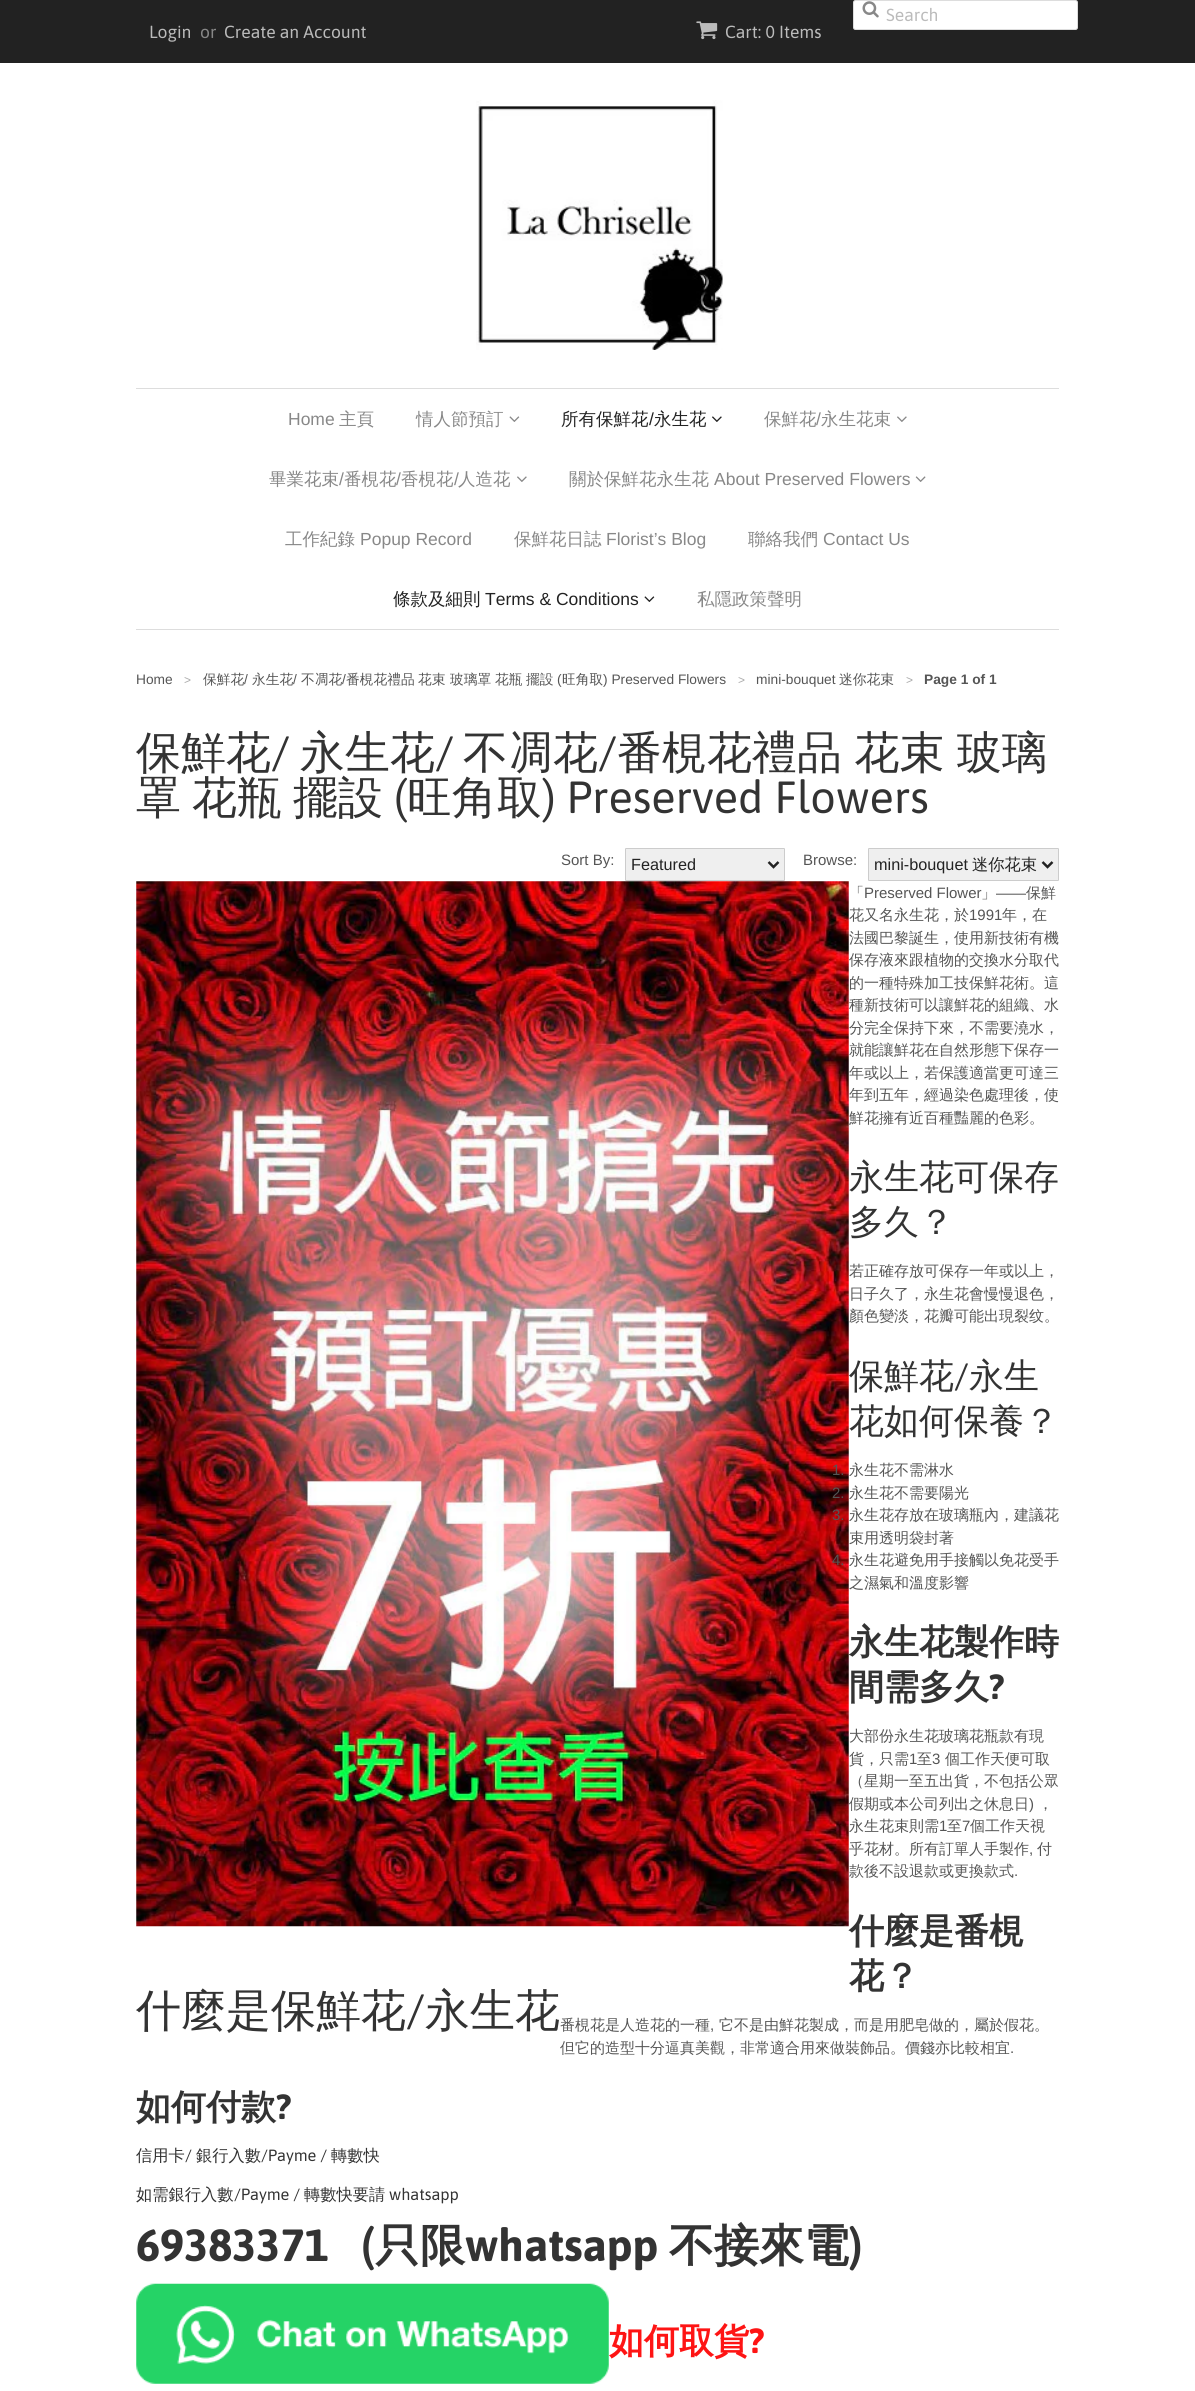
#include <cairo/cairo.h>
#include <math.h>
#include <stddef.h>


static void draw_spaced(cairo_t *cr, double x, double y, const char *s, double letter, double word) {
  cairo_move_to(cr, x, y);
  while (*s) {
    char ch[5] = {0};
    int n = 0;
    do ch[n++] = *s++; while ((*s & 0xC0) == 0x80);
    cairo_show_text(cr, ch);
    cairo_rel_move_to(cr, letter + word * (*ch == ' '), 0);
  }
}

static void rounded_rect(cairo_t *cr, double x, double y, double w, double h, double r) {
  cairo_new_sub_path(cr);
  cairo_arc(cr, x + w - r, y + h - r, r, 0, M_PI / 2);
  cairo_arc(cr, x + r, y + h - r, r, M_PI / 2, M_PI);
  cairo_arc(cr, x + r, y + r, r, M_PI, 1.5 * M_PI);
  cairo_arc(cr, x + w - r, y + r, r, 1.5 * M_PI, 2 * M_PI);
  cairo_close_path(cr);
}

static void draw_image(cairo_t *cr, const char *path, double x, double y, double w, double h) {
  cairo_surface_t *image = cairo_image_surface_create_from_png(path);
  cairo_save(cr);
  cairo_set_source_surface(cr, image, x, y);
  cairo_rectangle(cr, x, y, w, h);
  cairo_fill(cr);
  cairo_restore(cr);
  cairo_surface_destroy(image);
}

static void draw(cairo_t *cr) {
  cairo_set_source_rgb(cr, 1, 1, 1);
  cairo_paint(cr);
  cairo_set_source_rgb(cr, 34 / 255.0, 34 / 255.0, 34 / 255.0);
  cairo_rectangle(cr, 0, 0, 1195, 63);
  cairo_fill(cr);
  cairo_set_source_rgb(cr, 1, 1, 1);
  rounded_rect(cr, 853.5, 0.5, 224, 29, 2);
  cairo_fill_preserve(cr);
  cairo_set_source_rgb(cr, 221 / 255.0, 221 / 255.0, 221 / 255.0);
  cairo_set_line_width(cr, 1);
  cairo_stroke(cr);
  draw_image(cr, "images/1.png", 862, 1, 17, 17);
  draw_image(cr, "images/2.png", 696, 21, 22, 19);
  draw_image(cr, "images/3.png", 476, 100, 247, 250);
  cairo_rectangle(cr, 136, 388, 923, 1);
  cairo_fill(cr);
  cairo_rectangle(cr, 136, 629, 923, 1);
  cairo_fill(cr);
  draw_image(cr, "images/4.png", 509, 416, 11, 6);
  draw_image(cr, "images/5.png", 712, 416, 10, 6);
  draw_image(cr, "images/6.png", 897, 416, 10, 6);
  draw_image(cr, "images/6.png", 517, 476, 10, 6);
  draw_image(cr, "images/7.png", 915, 476, 11, 6);
  draw_image(cr, "images/8.png", 644, 596, 11, 6);
  cairo_set_source_rgb(cr, 239 / 255.0, 239 / 255.0, 239 / 255.0);
  rounded_rect(cr, 625.5, 848.5, 159, 32, 0.5);
  cairo_fill_preserve(cr);
  cairo_set_source_rgb(cr, 204 / 255.0, 204 / 255.0, 204 / 255.0);
  cairo_stroke(cr);
  cairo_new_path(cr);
  cairo_move_to(cr, 768.5, 862);
  cairo_line_to(cr, 773.5, 867);
  cairo_line_to(cr, 778.5, 862);
  cairo_set_source_rgb(cr, 34 / 255.0, 34 / 255.0, 34 / 255.0);
  cairo_set_line_width(cr, 2.5);
  cairo_stroke(cr);
  cairo_set_source_rgb(cr, 239 / 255.0, 239 / 255.0, 239 / 255.0);
  rounded_rect(cr, 868.5, 848.5, 190, 32, 0.5);
  cairo_fill_preserve(cr);
  cairo_set_source_rgb(cr, 204 / 255.0, 204 / 255.0, 204 / 255.0);
  cairo_set_line_width(cr, 1);
  cairo_stroke(cr);
  cairo_new_path(cr);
  cairo_move_to(cr, 1042.5, 862);
  cairo_line_to(cr, 1047.5, 867);
  cairo_line_to(cr, 1052.5, 862);
  cairo_set_source_rgb(cr, 34 / 255.0, 34 / 255.0, 34 / 255.0);
  cairo_set_line_width(cr, 2.5);
  cairo_stroke(cr);
  draw_image(cr, "images/9.png", 136, 881, 713, 1046);
  draw_image(cr, "images/10.png", 136, 2283, 473, 101);
  cairo_select_font_face(cr, "Asap", CAIRO_FONT_SLANT_NORMAL, CAIRO_FONT_WEIGHT_NORMAL);
  cairo_set_font_size(cr, 17.5);
  cairo_set_source_rgb(cr, 187 / 255.0, 187 / 255.0, 187 / 255.0);
  cairo_move_to(cr, 886, 21);
  cairo_show_text(cr, "Search");
  cairo_move_to(cr, 149, 38);
  cairo_show_text(cr, "Login");
  cairo_set_source_rgb(cr, 136 / 255.0, 136 / 255.0, 136 / 255.0);
  cairo_move_to(cr, 200, 38);
  cairo_show_text(cr, "or");
  cairo_set_source_rgb(cr, 187 / 255.0, 187 / 255.0, 187 / 255.0);
  cairo_move_to(cr, 224, 38);
  cairo_show_text(cr, "Create an Account");
  cairo_move_to(cr, 725, 38);
  cairo_show_text(cr, "Cart: 0 Items");
  cairo_select_font_face(cr, "Liberation Sans", CAIRO_FONT_SLANT_NORMAL, CAIRO_FONT_WEIGHT_NORMAL);
  cairo_set_source_rgb(cr, 136 / 255.0, 136 / 255.0, 136 / 255.0);
  cairo_move_to(cr, 288, 425);
  cairo_show_text(cr, "Home");
  cairo_select_font_face(cr, "WenQuanYi Zen Hei Medium", CAIRO_FONT_SLANT_NORMAL, CAIRO_FONT_WEIGHT_NORMAL);
  cairo_move_to(cr, 339, 425);
  cairo_show_text(cr, "主頁");
  cairo_move_to(cr, 416, 425);
  cairo_show_text(cr, "情人節預訂");
  cairo_set_source_rgb(cr, 34 / 255.0, 34 / 255.0, 34 / 255.0);
  cairo_move_to(cr, 561, 425);
  cairo_show_text(cr, "所有保鮮花");
  cairo_select_font_face(cr, "Liberation Sans", CAIRO_FONT_SLANT_NORMAL, CAIRO_FONT_WEIGHT_NORMAL);
  cairo_move_to(cr, 649, 425);
  cairo_show_text(cr, "/");
  cairo_select_font_face(cr, "WenQuanYi Zen Hei Medium", CAIRO_FONT_SLANT_NORMAL, CAIRO_FONT_WEIGHT_NORMAL);
  cairo_move_to(cr, 654, 425);
  cairo_show_text(cr, "永生花");
  cairo_set_source_rgb(cr, 136 / 255.0, 136 / 255.0, 136 / 255.0);
  cairo_move_to(cr, 764, 425);
  cairo_show_text(cr, "保鮮花");
  cairo_select_font_face(cr, "Liberation Sans", CAIRO_FONT_SLANT_NORMAL, CAIRO_FONT_WEIGHT_NORMAL);
  cairo_move_to(cr, 816, 425);
  cairo_show_text(cr, "/");
  cairo_select_font_face(cr, "WenQuanYi Zen Hei Medium", CAIRO_FONT_SLANT_NORMAL, CAIRO_FONT_WEIGHT_NORMAL);
  cairo_move_to(cr, 821, 425);
  cairo_show_text(cr, "永生花束");
  cairo_move_to(cr, 269, 485);
  cairo_show_text(cr, "畢業花束");
  cairo_select_font_face(cr, "Liberation Sans", CAIRO_FONT_SLANT_NORMAL, CAIRO_FONT_WEIGHT_NORMAL);
  cairo_move_to(cr, 339, 485);
  cairo_show_text(cr, "/");
  cairo_select_font_face(cr, "WenQuanYi Zen Hei Medium", CAIRO_FONT_SLANT_NORMAL, CAIRO_FONT_WEIGHT_NORMAL);
  cairo_move_to(cr, 344, 485);
  cairo_show_text(cr, "番梘花");
  cairo_select_font_face(cr, "Liberation Sans", CAIRO_FONT_SLANT_NORMAL, CAIRO_FONT_WEIGHT_NORMAL);
  cairo_move_to(cr, 396, 485);
  cairo_show_text(cr, "/");
  cairo_select_font_face(cr, "WenQuanYi Zen Hei Medium", CAIRO_FONT_SLANT_NORMAL, CAIRO_FONT_WEIGHT_NORMAL);
  cairo_move_to(cr, 401, 485);
  cairo_show_text(cr, "香梘花");
  cairo_select_font_face(cr, "Liberation Sans", CAIRO_FONT_SLANT_NORMAL, CAIRO_FONT_WEIGHT_NORMAL);
  cairo_move_to(cr, 454, 485);
  cairo_show_text(cr, "/");
  cairo_select_font_face(cr, "WenQuanYi Zen Hei Medium", CAIRO_FONT_SLANT_NORMAL, CAIRO_FONT_WEIGHT_NORMAL);
  cairo_move_to(cr, 458, 485);
  cairo_show_text(cr, "人造花");
  cairo_move_to(cr, 569, 485);
  cairo_show_text(cr, "關於保鮮花永生花");
  cairo_select_font_face(cr, "Liberation Sans", CAIRO_FONT_SLANT_NORMAL, CAIRO_FONT_WEIGHT_NORMAL);
  cairo_move_to(cr, 714, 485);
  cairo_show_text(cr, "About Preserved Flowers");
  cairo_select_font_face(cr, "WenQuanYi Zen Hei Medium", CAIRO_FONT_SLANT_NORMAL, CAIRO_FONT_WEIGHT_NORMAL);
  cairo_move_to(cr, 285, 545);
  cairo_show_text(cr, "工作紀錄");
  cairo_select_font_face(cr, "Liberation Sans", CAIRO_FONT_SLANT_NORMAL, CAIRO_FONT_WEIGHT_NORMAL);
  cairo_move_to(cr, 360, 545);
  cairo_show_text(cr, "Popup Record");
  cairo_select_font_face(cr, "WenQuanYi Zen Hei Medium", CAIRO_FONT_SLANT_NORMAL, CAIRO_FONT_WEIGHT_NORMAL);
  cairo_move_to(cr, 514, 545);
  cairo_show_text(cr, "保鮮花日誌");
  cairo_select_font_face(cr, "Liberation Sans", CAIRO_FONT_SLANT_NORMAL, CAIRO_FONT_WEIGHT_NORMAL);
  cairo_move_to(cr, 606, 545);
  cairo_show_text(cr, "Florist’s Blog");
  cairo_select_font_face(cr, "WenQuanYi Zen Hei Medium", CAIRO_FONT_SLANT_NORMAL, CAIRO_FONT_WEIGHT_NORMAL);
  cairo_move_to(cr, 748, 545);
  cairo_show_text(cr, "聯絡我們");
  cairo_select_font_face(cr, "Liberation Sans", CAIRO_FONT_SLANT_NORMAL, CAIRO_FONT_WEIGHT_NORMAL);
  cairo_move_to(cr, 823, 545);
  cairo_show_text(cr, "Contact Us");
  cairo_select_font_face(cr, "WenQuanYi Zen Hei Medium", CAIRO_FONT_SLANT_NORMAL, CAIRO_FONT_WEIGHT_NORMAL);
  cairo_set_source_rgb(cr, 34 / 255.0, 34 / 255.0, 34 / 255.0);
  cairo_move_to(cr, 393, 605);
  cairo_show_text(cr, "條款及細則");
  cairo_select_font_face(cr, "Liberation Sans", CAIRO_FONT_SLANT_NORMAL, CAIRO_FONT_WEIGHT_NORMAL);
  cairo_move_to(cr, 485, 605);
  cairo_show_text(cr, "Terms & Conditions");
  cairo_select_font_face(cr, "WenQuanYi Zen Hei Medium", CAIRO_FONT_SLANT_NORMAL, CAIRO_FONT_WEIGHT_NORMAL);
  cairo_set_source_rgb(cr, 136 / 255.0, 136 / 255.0, 136 / 255.0);
  cairo_move_to(cr, 697, 605);
  cairo_show_text(cr, "私隱政策聲明");
  cairo_select_font_face(cr, "Liberation Sans", CAIRO_FONT_SLANT_NORMAL, CAIRO_FONT_WEIGHT_NORMAL);
  cairo_set_font_size(cr, 13.75);
  cairo_set_source_rgb(cr, 85 / 255.0, 85 / 255.0, 85 / 255.0);
  cairo_move_to(cr, 136, 684);
  cairo_show_text(cr, "Home");
  cairo_set_font_size(cr, 12);
  cairo_set_source_rgb(cr, 170 / 255.0, 170 / 255.0, 170 / 255.0);
  cairo_move_to(cr, 184, 684);
  cairo_show_text(cr, ">");
  cairo_select_font_face(cr, "WenQuanYi Zen Hei Medium", CAIRO_FONT_SLANT_NORMAL, CAIRO_FONT_WEIGHT_NORMAL);
  cairo_set_font_size(cr, 13.75);
  cairo_set_source_rgb(cr, 85 / 255.0, 85 / 255.0, 85 / 255.0);
  cairo_move_to(cr, 203, 684);
  cairo_show_text(cr, "保鮮花");
  cairo_select_font_face(cr, "Liberation Sans", CAIRO_FONT_SLANT_NORMAL, CAIRO_FONT_WEIGHT_NORMAL);
  cairo_move_to(cr, 244, 684);
  cairo_show_text(cr, "/");
  cairo_select_font_face(cr, "WenQuanYi Zen Hei Medium", CAIRO_FONT_SLANT_NORMAL, CAIRO_FONT_WEIGHT_NORMAL);
  cairo_move_to(cr, 252, 684);
  cairo_show_text(cr, "永生花");
  cairo_select_font_face(cr, "Liberation Sans", CAIRO_FONT_SLANT_NORMAL, CAIRO_FONT_WEIGHT_NORMAL);
  cairo_move_to(cr, 293, 684);
  cairo_show_text(cr, "/");
  cairo_select_font_face(cr, "WenQuanYi Zen Hei Medium", CAIRO_FONT_SLANT_NORMAL, CAIRO_FONT_WEIGHT_NORMAL);
  cairo_move_to(cr, 301, 684);
  cairo_show_text(cr, "不凋花");
  cairo_select_font_face(cr, "Liberation Sans", CAIRO_FONT_SLANT_NORMAL, CAIRO_FONT_WEIGHT_NORMAL);
  cairo_move_to(cr, 342, 684);
  cairo_show_text(cr, "/");
  cairo_select_font_face(cr, "WenQuanYi Zen Hei Medium", CAIRO_FONT_SLANT_NORMAL, CAIRO_FONT_WEIGHT_NORMAL);
  cairo_move_to(cr, 346, 684);
  cairo_show_text(cr, "番梘花禮品");
  cairo_move_to(cr, 418, 684);
  cairo_show_text(cr, "花束");
  cairo_move_to(cr, 450, 684);
  cairo_show_text(cr, "玻璃罩");
  cairo_move_to(cr, 495, 684);
  cairo_show_text(cr, "花瓶");
  cairo_move_to(cr, 526, 684);
  cairo_show_text(cr, "擺設");
  cairo_select_font_face(cr, "Liberation Sans", CAIRO_FONT_SLANT_NORMAL, CAIRO_FONT_WEIGHT_NORMAL);
  cairo_move_to(cr, 557, 684);
  cairo_show_text(cr, "(");
  cairo_select_font_face(cr, "WenQuanYi Zen Hei Medium", CAIRO_FONT_SLANT_NORMAL, CAIRO_FONT_WEIGHT_NORMAL);
  cairo_move_to(cr, 562, 684);
  cairo_show_text(cr, "旺角取");
  cairo_select_font_face(cr, "Liberation Sans", CAIRO_FONT_SLANT_NORMAL, CAIRO_FONT_WEIGHT_NORMAL);
  cairo_move_to(cr, 603, 684);
  cairo_show_text(cr, ") Preserved Flowers");
  cairo_set_font_size(cr, 12);
  cairo_set_source_rgb(cr, 170 / 255.0, 170 / 255.0, 170 / 255.0);
  cairo_move_to(cr, 738, 684);
  cairo_show_text(cr, ">");
  cairo_set_font_size(cr, 13.75);
  cairo_set_source_rgb(cr, 85 / 255.0, 85 / 255.0, 85 / 255.0);
  cairo_move_to(cr, 756, 684);
  cairo_show_text(cr, "mini-bouquet");
  cairo_select_font_face(cr, "WenQuanYi Zen Hei Medium", CAIRO_FONT_SLANT_NORMAL, CAIRO_FONT_WEIGHT_NORMAL);
  cairo_move_to(cr, 839, 684);
  cairo_show_text(cr, "迷你花束");
  cairo_select_font_face(cr, "Liberation Sans", CAIRO_FONT_SLANT_NORMAL, CAIRO_FONT_WEIGHT_NORMAL);
  cairo_set_font_size(cr, 12);
  cairo_set_source_rgb(cr, 170 / 255.0, 170 / 255.0, 170 / 255.0);
  cairo_move_to(cr, 906, 684);
  cairo_show_text(cr, ">");
  cairo_select_font_face(cr, "Liberation Sans", CAIRO_FONT_SLANT_NORMAL, CAIRO_FONT_WEIGHT_BOLD);
  cairo_set_font_size(cr, 13.75);
  cairo_set_source_rgb(cr, 85 / 255.0, 85 / 255.0, 85 / 255.0);
  cairo_move_to(cr, 924, 684);
  cairo_show_text(cr, "Page 1 of 1");
  cairo_select_font_face(cr, "WenQuanYi Zen Hei Medium", CAIRO_FONT_SLANT_NORMAL, CAIRO_FONT_WEIGHT_NORMAL);
  cairo_set_font_size(cr, 45);
  cairo_set_source_rgb(cr, 51 / 255.0, 51 / 255.0, 51 / 255.0);
  cairo_move_to(cr, 136, 768);
  cairo_show_text(cr, "保鮮花");
  cairo_select_font_face(cr, "Asap", CAIRO_FONT_SLANT_NORMAL, CAIRO_FONT_WEIGHT_NORMAL);
  cairo_move_to(cr, 271, 768);
  cairo_show_text(cr, "/");
  cairo_select_font_face(cr, "WenQuanYi Zen Hei Medium", CAIRO_FONT_SLANT_NORMAL, CAIRO_FONT_WEIGHT_NORMAL);
  cairo_move_to(cr, 300, 768);
  cairo_show_text(cr, "永生花");
  cairo_select_font_face(cr, "Asap", CAIRO_FONT_SLANT_NORMAL, CAIRO_FONT_WEIGHT_NORMAL);
  cairo_move_to(cr, 435, 768);
  cairo_show_text(cr, "/");
  cairo_select_font_face(cr, "WenQuanYi Zen Hei Medium", CAIRO_FONT_SLANT_NORMAL, CAIRO_FONT_WEIGHT_NORMAL);
  cairo_move_to(cr, 463, 768);
  cairo_show_text(cr, "不凋花");
  cairo_select_font_face(cr, "Asap", CAIRO_FONT_SLANT_NORMAL, CAIRO_FONT_WEIGHT_NORMAL);
  cairo_move_to(cr, 598, 768);
  cairo_show_text(cr, "/");
  cairo_select_font_face(cr, "WenQuanYi Zen Hei Medium", CAIRO_FONT_SLANT_NORMAL, CAIRO_FONT_WEIGHT_NORMAL);
  draw_spaced(cr, 617, 768, "番梘花禮品 花束 玻璃", 0, -1);
  cairo_move_to(cr, 136, 813);
  cairo_show_text(cr, "罩");
  cairo_move_to(cr, 192, 813);
  cairo_show_text(cr, "花瓶");
  cairo_move_to(cr, 293, 813);
  cairo_show_text(cr, "擺設");
  cairo_select_font_face(cr, "Asap", CAIRO_FONT_SLANT_NORMAL, CAIRO_FONT_WEIGHT_NORMAL);
  cairo_move_to(cr, 394, 813);
  cairo_show_text(cr, "(");
  cairo_select_font_face(cr, "WenQuanYi Zen Hei Medium", CAIRO_FONT_SLANT_NORMAL, CAIRO_FONT_WEIGHT_NORMAL);
  cairo_move_to(cr, 407, 813);
  cairo_show_text(cr, "旺角取");
  cairo_select_font_face(cr, "Asap", CAIRO_FONT_SLANT_NORMAL, CAIRO_FONT_WEIGHT_NORMAL);
  cairo_move_to(cr, 542, 813);
  cairo_show_text(cr, ") Preserved Flowers");
  cairo_select_font_face(cr, "Liberation Sans", CAIRO_FONT_SLANT_NORMAL, CAIRO_FONT_WEIGHT_NORMAL);
  cairo_set_font_size(cr, 15);
  cairo_set_source_rgb(cr, 85 / 255.0, 85 / 255.0, 85 / 255.0);
  cairo_move_to(cr, 561, 865);
  cairo_show_text(cr, "Sort By:");
  cairo_set_font_size(cr, 16.25);
  cairo_set_source_rgb(cr, 34 / 255.0, 34 / 255.0, 34 / 255.0);
  cairo_move_to(cr, 631, 870);
  cairo_show_text(cr, "Featured");
  cairo_set_font_size(cr, 15);
  cairo_set_source_rgb(cr, 85 / 255.0, 85 / 255.0, 85 / 255.0);
  cairo_move_to(cr, 803, 865);
  cairo_show_text(cr, "Browse:");
  cairo_set_font_size(cr, 16.25);
  cairo_set_source_rgb(cr, 34 / 255.0, 34 / 255.0, 34 / 255.0);
  cairo_move_to(cr, 874, 870);
  cairo_show_text(cr, "mini-bouquet");
  cairo_select_font_face(cr, "WenQuanYi Zen Hei Medium", CAIRO_FONT_SLANT_NORMAL, CAIRO_FONT_WEIGHT_NORMAL);
  cairo_move_to(cr, 972, 870);
  cairo_show_text(cr, "迷你花束");
  cairo_set_font_size(cr, 15);
  cairo_set_source_rgb(cr, 85 / 255.0, 85 / 255.0, 85 / 255.0);
  cairo_move_to(cr, 849, 898);
  cairo_show_text(cr, "「");
  cairo_select_font_face(cr, "Liberation Sans", CAIRO_FONT_SLANT_NORMAL, CAIRO_FONT_WEIGHT_NORMAL);
  cairo_move_to(cr, 864, 898);
  cairo_show_text(cr, "Preserved Flower");
  cairo_select_font_face(cr, "WenQuanYi Zen Hei Medium", CAIRO_FONT_SLANT_NORMAL, CAIRO_FONT_WEIGHT_NORMAL);
  cairo_move_to(cr, 981, 898);
  cairo_show_text(cr, "」");
  cairo_select_font_face(cr, "Liberation Sans", CAIRO_FONT_SLANT_NORMAL, CAIRO_FONT_WEIGHT_NORMAL);
  cairo_move_to(cr, 996, 898);
  cairo_show_text(cr, "——");
  cairo_select_font_face(cr, "WenQuanYi Zen Hei Medium", CAIRO_FONT_SLANT_NORMAL, CAIRO_FONT_WEIGHT_NORMAL);
  cairo_move_to(cr, 1026, 898);
  cairo_show_text(cr, "保鮮");
  cairo_move_to(cr, 849, 920);
  cairo_show_text(cr, "花又名永生花，於");
  cairo_select_font_face(cr, "Liberation Sans", CAIRO_FONT_SLANT_NORMAL, CAIRO_FONT_WEIGHT_NORMAL);
  cairo_move_to(cr, 969, 920);
  cairo_show_text(cr, "1991");
  cairo_select_font_face(cr, "WenQuanYi Zen Hei Medium", CAIRO_FONT_SLANT_NORMAL, CAIRO_FONT_WEIGHT_NORMAL);
  cairo_move_to(cr, 1002, 920);
  cairo_show_text(cr, "年，在");
  cairo_move_to(cr, 849, 943);
  cairo_show_text(cr, "法國巴黎誕生，使用新技術有機");
  cairo_move_to(cr, 849, 965);
  cairo_show_text(cr, "保存液來跟植物的交換水分取代");
  cairo_move_to(cr, 849, 988);
  cairo_show_text(cr, "的一種特殊加工技保鮮花術。這");
  cairo_move_to(cr, 849, 1010);
  cairo_show_text(cr, "種新技術可以讓鮮花的組織、水");
  cairo_move_to(cr, 849, 1033);
  cairo_show_text(cr, "分完全保持下來，不需要澆水，");
  cairo_move_to(cr, 849, 1055);
  cairo_show_text(cr, "就能讓鮮花在自然形態下保存一");
  cairo_move_to(cr, 849, 1078);
  cairo_show_text(cr, "年或以上，若保護適當更可達三");
  cairo_move_to(cr, 849, 1100);
  cairo_show_text(cr, "年到五年，經過染色處理後，使");
  cairo_move_to(cr, 849, 1123);
  cairo_show_text(cr, "鮮花擁有近百種豔麗的色彩。");
  cairo_set_font_size(cr, 35);
  cairo_set_source_rgb(cr, 51 / 255.0, 51 / 255.0, 51 / 255.0);
  cairo_move_to(cr, 849, 1189);
  cairo_show_text(cr, "永生花可保存");
  cairo_move_to(cr, 849, 1234);
  cairo_show_text(cr, "多久？");
  cairo_set_font_size(cr, 15);
  cairo_set_source_rgb(cr, 85 / 255.0, 85 / 255.0, 85 / 255.0);
  cairo_move_to(cr, 849, 1276);
  cairo_show_text(cr, "若正確存放可保存一年或以上，");
  cairo_move_to(cr, 849, 1299);
  cairo_show_text(cr, "日子久了，永生花會慢慢退色，");
  cairo_move_to(cr, 849, 1321);
  cairo_show_text(cr, "顏色變淡，花瓣可能出現裂纹。");
  cairo_set_font_size(cr, 35);
  cairo_set_source_rgb(cr, 51 / 255.0, 51 / 255.0, 51 / 255.0);
  cairo_move_to(cr, 849, 1388);
  cairo_show_text(cr, "保鮮花");
  cairo_select_font_face(cr, "Asap", CAIRO_FONT_SLANT_NORMAL, CAIRO_FONT_WEIGHT_NORMAL);
  cairo_move_to(cr, 954, 1388);
  cairo_show_text(cr, "/");
  cairo_select_font_face(cr, "WenQuanYi Zen Hei Medium", CAIRO_FONT_SLANT_NORMAL, CAIRO_FONT_WEIGHT_NORMAL);
  cairo_move_to(cr, 969, 1388);
  cairo_show_text(cr, "永生");
  cairo_move_to(cr, 849, 1433);
  cairo_show_text(cr, "花如何保養？");
  cairo_select_font_face(cr, "Liberation Sans", CAIRO_FONT_SLANT_NORMAL, CAIRO_FONT_WEIGHT_NORMAL);
  cairo_set_font_size(cr, 15);
  cairo_set_source_rgb(cr, 85 / 255.0, 85 / 255.0, 85 / 255.0);
  cairo_move_to(cr, 832, 1475);
  cairo_show_text(cr, "1.");
  cairo_select_font_face(cr, "WenQuanYi Zen Hei Medium", CAIRO_FONT_SLANT_NORMAL, CAIRO_FONT_WEIGHT_NORMAL);
  cairo_move_to(cr, 849, 1475);
  cairo_show_text(cr, "永生花不需淋水");
  cairo_select_font_face(cr, "Liberation Sans", CAIRO_FONT_SLANT_NORMAL, CAIRO_FONT_WEIGHT_NORMAL);
  cairo_move_to(cr, 832, 1498);
  cairo_show_text(cr, "2.");
  cairo_select_font_face(cr, "WenQuanYi Zen Hei Medium", CAIRO_FONT_SLANT_NORMAL, CAIRO_FONT_WEIGHT_NORMAL);
  cairo_move_to(cr, 849, 1498);
  cairo_show_text(cr, "永生花不需要陽光");
  cairo_select_font_face(cr, "Liberation Sans", CAIRO_FONT_SLANT_NORMAL, CAIRO_FONT_WEIGHT_NORMAL);
  cairo_move_to(cr, 832, 1520);
  cairo_show_text(cr, "3.");
  cairo_select_font_face(cr, "WenQuanYi Zen Hei Medium", CAIRO_FONT_SLANT_NORMAL, CAIRO_FONT_WEIGHT_NORMAL);
  cairo_move_to(cr, 849, 1520);
  cairo_show_text(cr, "永生花存放在玻璃瓶內，建議花");
  cairo_move_to(cr, 849, 1543);
  cairo_show_text(cr, "束用透明袋封著");
  cairo_select_font_face(cr, "Liberation Sans", CAIRO_FONT_SLANT_NORMAL, CAIRO_FONT_WEIGHT_NORMAL);
  cairo_move_to(cr, 832, 1565);
  cairo_show_text(cr, "4.");
  cairo_select_font_face(cr, "WenQuanYi Zen Hei Medium", CAIRO_FONT_SLANT_NORMAL, CAIRO_FONT_WEIGHT_NORMAL);
  cairo_move_to(cr, 849, 1565);
  cairo_show_text(cr, "永生花避免用手接觸以免花受手");
  cairo_move_to(cr, 849, 1588);
  cairo_show_text(cr, "之濕氣和溫度影響");
  cairo_select_font_face(cr, "WenQuanYi Zen Hei", CAIRO_FONT_SLANT_NORMAL, CAIRO_FONT_WEIGHT_BOLD);
  cairo_set_font_size(cr, 35);
  cairo_set_source_rgb(cr, 51 / 255.0, 51 / 255.0, 51 / 255.0);
  cairo_move_to(cr, 849, 1654);
  cairo_show_text(cr, "永生花製作時");
  cairo_move_to(cr, 849, 1699);
  cairo_show_text(cr, "間需多久");
  cairo_select_font_face(cr, "Asap", CAIRO_FONT_SLANT_NORMAL, CAIRO_FONT_WEIGHT_BOLD);
  cairo_move_to(cr, 989, 1699);
  cairo_show_text(cr, "?");
  cairo_select_font_face(cr, "WenQuanYi Zen Hei Medium", CAIRO_FONT_SLANT_NORMAL, CAIRO_FONT_WEIGHT_NORMAL);
  cairo_set_font_size(cr, 15);
  cairo_set_source_rgb(cr, 85 / 255.0, 85 / 255.0, 85 / 255.0);
  cairo_move_to(cr, 849, 1741);
  cairo_show_text(cr, "大部份永生花玻璃花瓶款有現");
  cairo_move_to(cr, 849, 1764);
  cairo_show_text(cr, "貨，只需");
  cairo_select_font_face(cr, "Liberation Sans", CAIRO_FONT_SLANT_NORMAL, CAIRO_FONT_WEIGHT_NORMAL);
  cairo_move_to(cr, 909, 1764);
  cairo_show_text(cr, "1");
  cairo_select_font_face(cr, "WenQuanYi Zen Hei Medium", CAIRO_FONT_SLANT_NORMAL, CAIRO_FONT_WEIGHT_NORMAL);
  cairo_move_to(cr, 917, 1764);
  cairo_show_text(cr, "至");
  cairo_select_font_face(cr, "Liberation Sans", CAIRO_FONT_SLANT_NORMAL, CAIRO_FONT_WEIGHT_NORMAL);
  cairo_move_to(cr, 932, 1764);
  cairo_show_text(cr, "3");
  cairo_select_font_face(cr, "WenQuanYi Zen Hei Medium", CAIRO_FONT_SLANT_NORMAL, CAIRO_FONT_WEIGHT_NORMAL);
  cairo_move_to(cr, 945, 1764);
  cairo_show_text(cr, "個工作天便可取");
  cairo_move_to(cr, 849, 1786);
  cairo_show_text(cr, "（星期一至五出貨，不包括公眾");
  cairo_move_to(cr, 849, 1809);
  cairo_show_text(cr, "假期或本公司列出之休息日");
  cairo_select_font_face(cr, "Liberation Sans", CAIRO_FONT_SLANT_NORMAL, CAIRO_FONT_WEIGHT_NORMAL);
  cairo_move_to(cr, 1029, 1809);
  cairo_show_text(cr, ")");
  cairo_select_font_face(cr, "WenQuanYi Zen Hei Medium", CAIRO_FONT_SLANT_NORMAL, CAIRO_FONT_WEIGHT_NORMAL);
  cairo_move_to(cr, 1038, 1809);
  cairo_show_text(cr, "，");
  cairo_move_to(cr, 849, 1831);
  cairo_show_text(cr, "永生花束則需");
  cairo_select_font_face(cr, "Liberation Sans", CAIRO_FONT_SLANT_NORMAL, CAIRO_FONT_WEIGHT_NORMAL);
  cairo_move_to(cr, 939, 1831);
  cairo_show_text(cr, "1");
  cairo_select_font_face(cr, "WenQuanYi Zen Hei Medium", CAIRO_FONT_SLANT_NORMAL, CAIRO_FONT_WEIGHT_NORMAL);
  cairo_move_to(cr, 947, 1831);
  cairo_show_text(cr, "至");
  cairo_select_font_face(cr, "Liberation Sans", CAIRO_FONT_SLANT_NORMAL, CAIRO_FONT_WEIGHT_NORMAL);
  cairo_move_to(cr, 962, 1831);
  cairo_show_text(cr, "7");
  cairo_select_font_face(cr, "WenQuanYi Zen Hei Medium", CAIRO_FONT_SLANT_NORMAL, CAIRO_FONT_WEIGHT_NORMAL);
  cairo_move_to(cr, 970, 1831);
  cairo_show_text(cr, "個工作天視");
  cairo_move_to(cr, 849, 1854);
  cairo_show_text(cr, "乎花材。所有訂單人手製作");
  cairo_select_font_face(cr, "Liberation Sans", CAIRO_FONT_SLANT_NORMAL, CAIRO_FONT_WEIGHT_NORMAL);
  cairo_move_to(cr, 1029, 1854);
  cairo_show_text(cr, ",");
  cairo_select_font_face(cr, "WenQuanYi Zen Hei Medium", CAIRO_FONT_SLANT_NORMAL, CAIRO_FONT_WEIGHT_NORMAL);
  cairo_move_to(cr, 1037, 1854);
  cairo_show_text(cr, "付");
  cairo_move_to(cr, 849, 1876);
  cairo_show_text(cr, "款後不設退款或更換款式");
  cairo_select_font_face(cr, "Liberation Sans", CAIRO_FONT_SLANT_NORMAL, CAIRO_FONT_WEIGHT_NORMAL);
  cairo_move_to(cr, 1014, 1876);
  cairo_show_text(cr, ".");
  cairo_select_font_face(cr, "WenQuanYi Zen Hei", CAIRO_FONT_SLANT_NORMAL, CAIRO_FONT_WEIGHT_BOLD);
  cairo_set_font_size(cr, 35);
  cairo_set_source_rgb(cr, 51 / 255.0, 51 / 255.0, 51 / 255.0);
  cairo_move_to(cr, 849, 1943);
  cairo_show_text(cr, "什麼是番梘");
  cairo_move_to(cr, 849, 1988);
  cairo_show_text(cr, "花？");
  cairo_select_font_face(cr, "WenQuanYi Zen Hei Medium", CAIRO_FONT_SLANT_NORMAL, CAIRO_FONT_WEIGHT_NORMAL);
  cairo_set_font_size(cr, 45);
  cairo_move_to(cr, 136, 2026);
  cairo_show_text(cr, "什麼是保鮮花");
  cairo_select_font_face(cr, "Asap", CAIRO_FONT_SLANT_NORMAL, CAIRO_FONT_WEIGHT_NORMAL);
  cairo_move_to(cr, 406, 2026);
  cairo_show_text(cr, "/");
  cairo_select_font_face(cr, "WenQuanYi Zen Hei Medium", CAIRO_FONT_SLANT_NORMAL, CAIRO_FONT_WEIGHT_NORMAL);
  cairo_move_to(cr, 425, 2026);
  cairo_show_text(cr, "永生花");
  cairo_set_font_size(cr, 15);
  cairo_set_source_rgb(cr, 85 / 255.0, 85 / 255.0, 85 / 255.0);
  cairo_move_to(cr, 560, 2030);
  cairo_show_text(cr, "番梘花是人造花的一種");
  cairo_select_font_face(cr, "Liberation Sans", CAIRO_FONT_SLANT_NORMAL, CAIRO_FONT_WEIGHT_NORMAL);
  cairo_move_to(cr, 710, 2030);
  cairo_show_text(cr, ",");
  cairo_select_font_face(cr, "WenQuanYi Zen Hei Medium", CAIRO_FONT_SLANT_NORMAL, CAIRO_FONT_WEIGHT_NORMAL);
  cairo_move_to(cr, 719, 2030);
  cairo_show_text(cr, "它不是由鮮花製成，而是用肥皂做的，屬於假花。");
  cairo_move_to(cr, 560, 2053);
  cairo_show_text(cr, "但它的造型十分逼真美觀，非常適合用來做裝飾品。價錢亦比較相宜");
  cairo_select_font_face(cr, "Liberation Sans", CAIRO_FONT_SLANT_NORMAL, CAIRO_FONT_WEIGHT_NORMAL);
  cairo_move_to(cr, 1010, 2053);
  cairo_show_text(cr, ".");
  cairo_select_font_face(cr, "WenQuanYi Zen Hei", CAIRO_FONT_SLANT_NORMAL, CAIRO_FONT_WEIGHT_BOLD);
  cairo_set_font_size(cr, 35);
  cairo_set_source_rgb(cr, 51 / 255.0, 51 / 255.0, 51 / 255.0);
  cairo_move_to(cr, 136, 2119);
  cairo_show_text(cr, "如何付款");
  cairo_select_font_face(cr, "Asap", CAIRO_FONT_SLANT_NORMAL, CAIRO_FONT_WEIGHT_BOLD);
  cairo_move_to(cr, 276, 2119);
  cairo_show_text(cr, "?");
  cairo_select_font_face(cr, "WenQuanYi Zen Hei Medium", CAIRO_FONT_SLANT_NORMAL, CAIRO_FONT_WEIGHT_NORMAL);
  cairo_set_font_size(cr, 16.25);
  cairo_move_to(cr, 136, 2161);
  cairo_show_text(cr, "信用卡");
  cairo_select_font_face(cr, "Asap", CAIRO_FONT_SLANT_NORMAL, CAIRO_FONT_WEIGHT_NORMAL);
  cairo_move_to(cr, 185, 2161);
  cairo_show_text(cr, "/");
  cairo_select_font_face(cr, "WenQuanYi Zen Hei Medium", CAIRO_FONT_SLANT_NORMAL, CAIRO_FONT_WEIGHT_NORMAL);
  cairo_move_to(cr, 196, 2161);
  cairo_show_text(cr, "銀行入數");
  cairo_select_font_face(cr, "Asap", CAIRO_FONT_SLANT_NORMAL, CAIRO_FONT_WEIGHT_NORMAL);
  cairo_move_to(cr, 261, 2161);
  cairo_show_text(cr, "/Payme /");
  cairo_select_font_face(cr, "WenQuanYi Zen Hei Medium", CAIRO_FONT_SLANT_NORMAL, CAIRO_FONT_WEIGHT_NORMAL);
  cairo_move_to(cr, 331, 2161);
  cairo_show_text(cr, "轉數快");
  cairo_move_to(cr, 136, 2200);
  cairo_show_text(cr, "如需銀行入數");
  cairo_select_font_face(cr, "Asap", CAIRO_FONT_SLANT_NORMAL, CAIRO_FONT_WEIGHT_NORMAL);
  cairo_move_to(cr, 234, 2200);
  cairo_show_text(cr, "/Payme /");
  cairo_select_font_face(cr, "WenQuanYi Zen Hei Medium", CAIRO_FONT_SLANT_NORMAL, CAIRO_FONT_WEIGHT_NORMAL);
  cairo_move_to(cr, 304, 2200);
  cairo_show_text(cr, "轉數快要請");
  cairo_select_font_face(cr, "Asap", CAIRO_FONT_SLANT_NORMAL, CAIRO_FONT_WEIGHT_NORMAL);
  cairo_move_to(cr, 389, 2200);
  cairo_show_text(cr, "whatsapp");
  cairo_select_font_face(cr, "Asap", CAIRO_FONT_SLANT_NORMAL, CAIRO_FONT_WEIGHT_BOLD);
  cairo_set_font_size(cr, 45);
  cairo_move_to(cr, 136, 2261);
  cairo_show_text(cr, "69383371   (");
  cairo_select_font_face(cr, "WenQuanYi Zen Hei", CAIRO_FONT_SLANT_NORMAL, CAIRO_FONT_WEIGHT_BOLD);
  cairo_move_to(cr, 375, 2261);
  cairo_show_text(cr, "只限");
  cairo_select_font_face(cr, "Asap", CAIRO_FONT_SLANT_NORMAL, CAIRO_FONT_WEIGHT_BOLD);
  cairo_move_to(cr, 465, 2261);
  cairo_show_text(cr, "whatsapp");
  cairo_select_font_face(cr, "WenQuanYi Zen Hei", CAIRO_FONT_SLANT_NORMAL, CAIRO_FONT_WEIGHT_BOLD);
  cairo_move_to(cr, 669, 2261);
  cairo_show_text(cr, "不接來電");
  cairo_select_font_face(cr, "Asap", CAIRO_FONT_SLANT_NORMAL, CAIRO_FONT_WEIGHT_BOLD);
  cairo_move_to(cr, 849, 2261);
  cairo_show_text(cr, ")");
  cairo_select_font_face(cr, "WenQuanYi Zen Hei", CAIRO_FONT_SLANT_NORMAL, CAIRO_FONT_WEIGHT_BOLD);
  cairo_set_font_size(cr, 35);
  cairo_set_source_rgb(cr, 254 / 255.0, 20 / 255.0, 20 / 255.0);
  cairo_move_to(cr, 609, 2353);
  cairo_show_text(cr, "如何取貨");
  cairo_select_font_face(cr, "Asap", CAIRO_FONT_SLANT_NORMAL, CAIRO_FONT_WEIGHT_BOLD);
  cairo_move_to(cr, 749, 2353);
  cairo_show_text(cr, "?");
}

int main(void) {
  cairo_surface_t *surface = cairo_image_surface_create(CAIRO_FORMAT_RGB24, 1195, 2391);
  cairo_t *cr = cairo_create(surface);
  cairo_font_options_t *options = cairo_font_options_create();
  cairo_font_options_set_hint_metrics(options, CAIRO_HINT_METRICS_OFF);
  cairo_font_options_set_hint_style(options, CAIRO_HINT_STYLE_NONE);
  cairo_set_font_options(cr, options);
  cairo_set_miter_limit(cr, 4);
  draw(cr);
  cairo_surface_write_to_png(surface, "out.png");
  cairo_font_options_destroy(options);
  cairo_destroy(cr);
  cairo_surface_destroy(surface);
  return 0;
}
